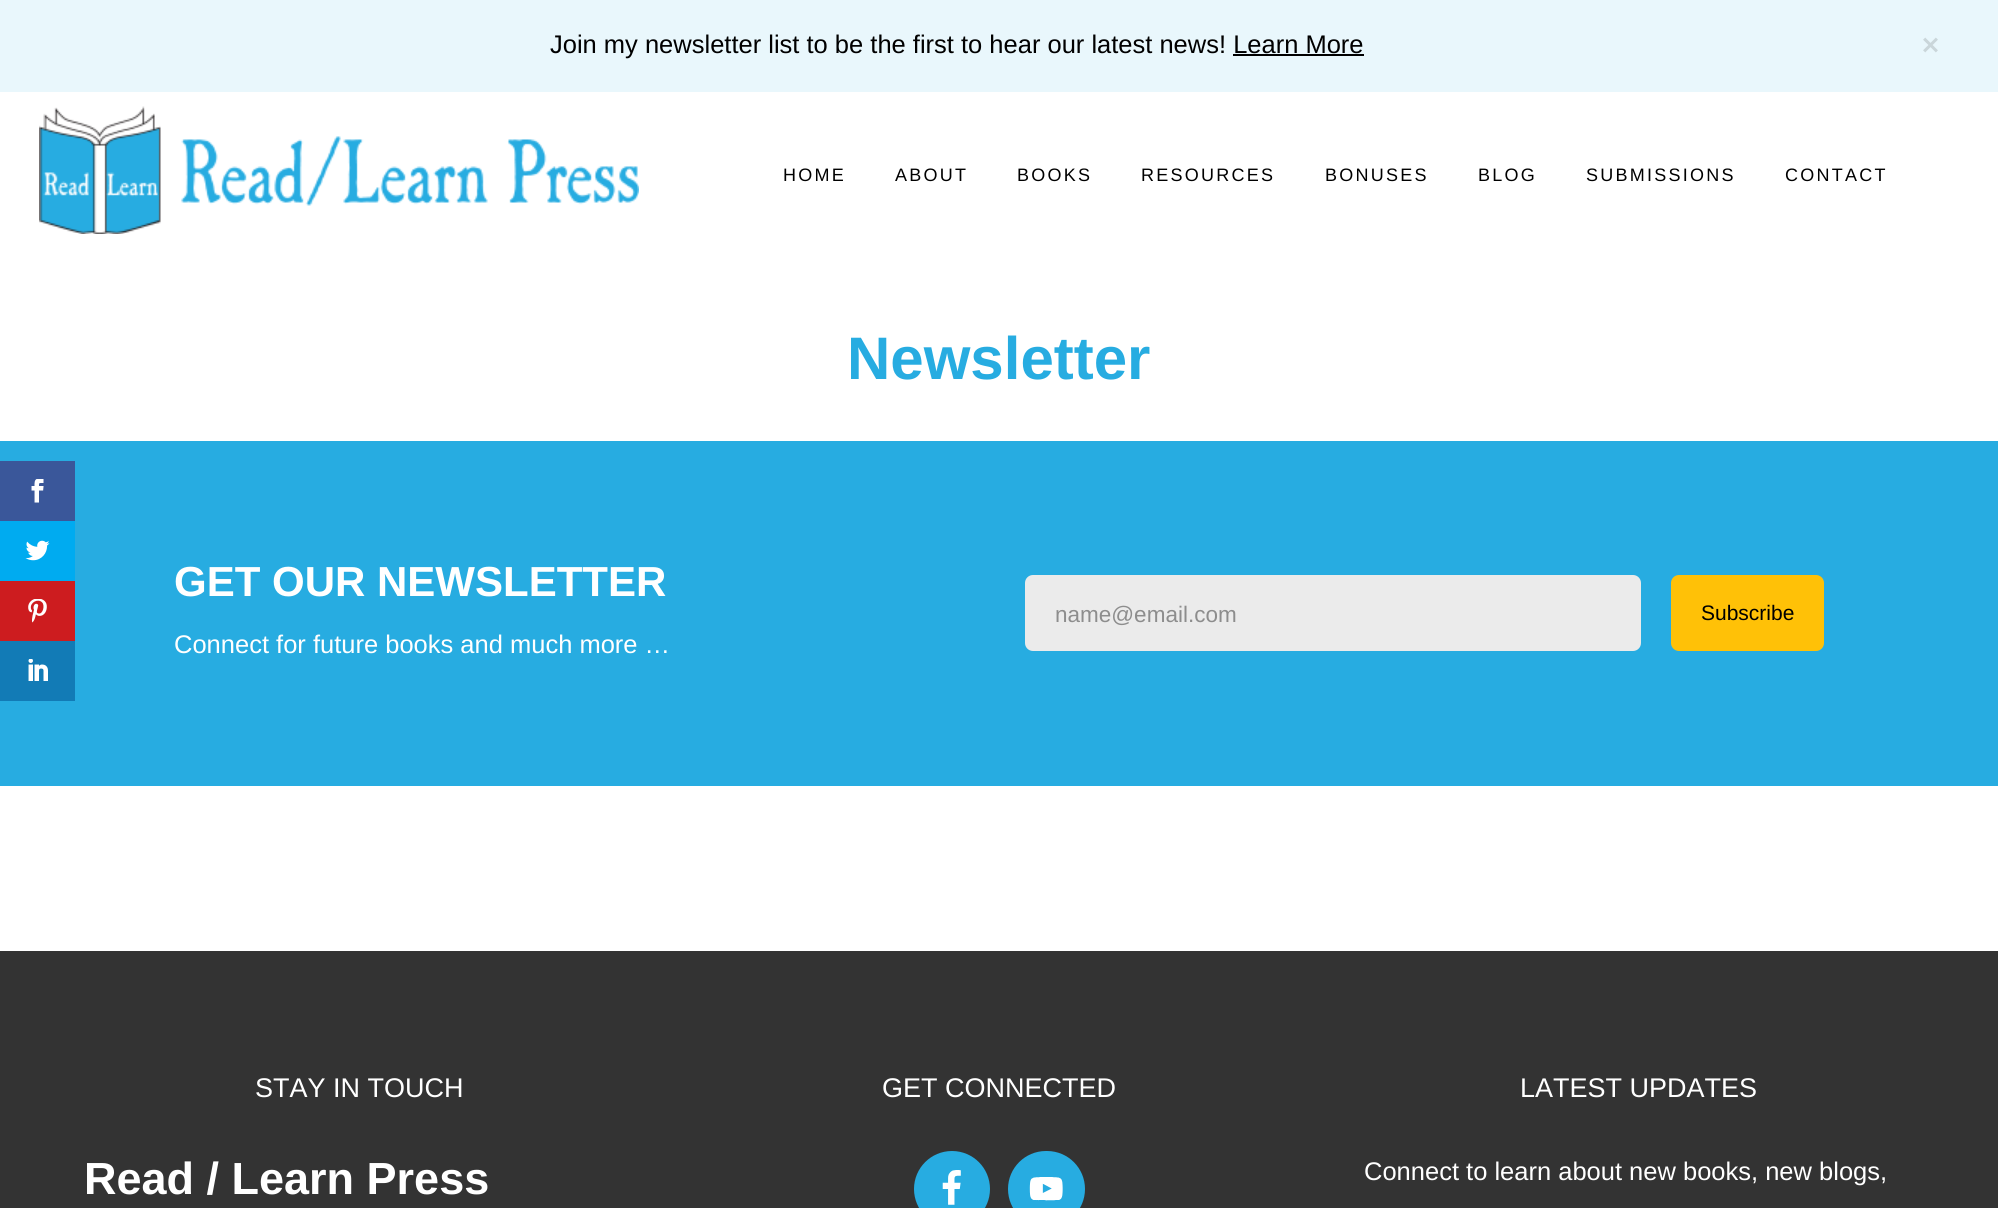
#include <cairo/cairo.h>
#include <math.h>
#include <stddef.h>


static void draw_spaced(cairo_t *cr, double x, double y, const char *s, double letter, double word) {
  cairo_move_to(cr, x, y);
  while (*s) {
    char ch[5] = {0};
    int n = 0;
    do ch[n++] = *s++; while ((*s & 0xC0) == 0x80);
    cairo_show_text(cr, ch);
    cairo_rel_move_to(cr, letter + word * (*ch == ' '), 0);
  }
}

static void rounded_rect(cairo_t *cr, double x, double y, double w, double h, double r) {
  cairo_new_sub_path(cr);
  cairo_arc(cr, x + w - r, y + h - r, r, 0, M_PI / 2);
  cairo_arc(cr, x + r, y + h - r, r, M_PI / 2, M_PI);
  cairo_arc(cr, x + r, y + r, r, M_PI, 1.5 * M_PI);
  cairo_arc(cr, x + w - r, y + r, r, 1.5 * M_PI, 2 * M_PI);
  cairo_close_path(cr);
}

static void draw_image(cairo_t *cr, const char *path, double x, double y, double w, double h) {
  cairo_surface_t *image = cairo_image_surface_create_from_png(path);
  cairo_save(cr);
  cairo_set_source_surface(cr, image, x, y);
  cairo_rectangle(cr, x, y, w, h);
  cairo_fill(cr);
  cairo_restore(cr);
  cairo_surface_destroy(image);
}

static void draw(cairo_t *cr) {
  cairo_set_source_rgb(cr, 1, 1, 1);
  cairo_paint(cr);
  cairo_set_source_rgb(cr, 233 / 255.0, 247 / 255.0, 252 / 255.0);
  cairo_rectangle(cr, 0, 0, 1998, 92);
  cairo_fill(cr);
  draw_image(cr, "images/1.png", 1923, 37, 15, 16);
  cairo_set_source_rgb(cr, 0, 0, 0);
  cairo_rectangle(cr, 1233, 54, 131, 2);
  cairo_fill(cr);
  cairo_set_source_rgb(cr, 39 / 255.0, 172 / 255.0, 225 / 255.0);
  cairo_rectangle(cr, 0, 441, 1998, 345);
  cairo_fill(cr);
  cairo_set_source_rgb(cr, 58 / 255.0, 87 / 255.0, 154 / 255.0);
  cairo_rectangle(cr, 0, 461, 75, 60);
  cairo_fill(cr);
  draw_image(cr, "images/2.png", 31, 479, 13, 24);
  cairo_set_source_rgb(cr, 0, 171 / 255.0, 240 / 255.0);
  cairo_rectangle(cr, 0, 521, 75, 60);
  cairo_fill(cr);
  draw_image(cr, "images/3.png", 25, 540, 25, 21);
  cairo_set_source_rgb(cr, 205 / 255.0, 28 / 255.0, 31 / 255.0);
  cairo_rectangle(cr, 0, 581, 75, 60);
  cairo_fill(cr);
  draw_image(cr, "images/4.png", 28, 599, 19, 24);
  cairo_set_source_rgb(cr, 18 / 255.0, 123 / 255.0, 182 / 255.0);
  cairo_rectangle(cr, 0, 641, 75, 60);
  cairo_fill(cr);
  draw_image(cr, "images/5.png", 28, 659, 20, 22);
  draw_image(cr, "images/6.png", 39, 106, 600, 128);
  cairo_set_source_rgb(cr, 235 / 255.0, 235 / 255.0, 235 / 255.0);
  rounded_rect(cr, 1025, 575, 616, 76, 8);
  cairo_fill(cr);
  cairo_set_source_rgb(cr, 1, 193 / 255.0, 7 / 255.0);
  rounded_rect(cr, 1671, 575, 153, 76, 8);
  cairo_fill(cr);
  cairo_set_source_rgb(cr, 51 / 255.0, 51 / 255.0, 51 / 255.0);
  cairo_rectangle(cr, 0, 951, 1998, 257);
  cairo_fill(cr);
  cairo_set_source_rgb(cr, 39 / 255.0, 172 / 255.0, 225 / 255.0);
  cairo_arc(cr, 952, 1189, 38, 0, 2 * M_PI);
  cairo_fill(cr);
  draw_image(cr, "images/7.png", 942, 1170, 19, 35);
  rounded_rect(cr, 1008, 1151, 77, 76, 38);
  cairo_fill(cr);
  draw_image(cr, "images/8.png", 1029, 1177, 34, 24);
  cairo_select_font_face(cr, "Liberation Sans", CAIRO_FONT_SLANT_NORMAL, CAIRO_FONT_WEIGHT_NORMAL);
  cairo_set_font_size(cr, 25.5);
  cairo_set_source_rgb(cr, 0, 0, 0);
  cairo_move_to(cr, 550, 53);
  cairo_show_text(cr, "Join my newsletter list to be the first to hear our latest news! Learn More");
  cairo_set_font_size(cr, 18);
  draw_spaced(cr, 783, 181, "HOME", 2.25, 0);
  draw_spaced(cr, 895, 181, "ABOUT", 2.25, 0);
  draw_spaced(cr, 1017, 181, "BOOKS", 2.25, 0);
  draw_spaced(cr, 1141, 181, "RESOURCES", 2.25, 0);
  draw_spaced(cr, 1325, 181, "BONUSES", 2.25, 0);
  draw_spaced(cr, 1478, 181, "BLOG", 2.25, 0);
  draw_spaced(cr, 1586, 181, "SUBMISSIONS", 2.25, 0);
  draw_spaced(cr, 1785, 181, "CONTACT", 2.25, 0);
  cairo_select_font_face(cr, "Liberation Sans", CAIRO_FONT_SLANT_NORMAL, CAIRO_FONT_WEIGHT_BOLD);
  cairo_set_font_size(cr, 60);
  cairo_set_source_rgb(cr, 39 / 255.0, 172 / 255.0, 225 / 255.0);
  cairo_move_to(cr, 847, 379);
  cairo_show_text(cr, "Newsletter");
  cairo_set_font_size(cr, 42);
  cairo_set_source_rgb(cr, 1, 1, 1);
  cairo_move_to(cr, 174, 596);
  cairo_show_text(cr, "GET OUR NEWSLETTER");
  cairo_select_font_face(cr, "Liberation Sans", CAIRO_FONT_SLANT_NORMAL, CAIRO_FONT_WEIGHT_NORMAL);
  cairo_set_font_size(cr, 25.5);
  cairo_move_to(cr, 174, 653);
  cairo_show_text(cr, "Connect for future books and much more …");
  cairo_set_font_size(cr, 22.5);
  cairo_set_source_rgb(cr, 141 / 255.0, 141 / 255.0, 141 / 255.0);
  cairo_move_to(cr, 1055, 622);
  cairo_show_text(cr, "name@email.com");
  cairo_set_font_size(cr, 21);
  cairo_set_source_rgb(cr, 0, 0, 0);
  cairo_move_to(cr, 1701, 620);
  cairo_show_text(cr, "Subscribe");
  cairo_set_font_size(cr, 27);
  cairo_set_source_rgb(cr, 1, 1, 1);
  cairo_move_to(cr, 255, 1097);
  cairo_show_text(cr, "STAY IN TOUCH");
  cairo_select_font_face(cr, "Liberation Sans", CAIRO_FONT_SLANT_NORMAL, CAIRO_FONT_WEIGHT_BOLD);
  cairo_set_font_size(cr, 45);
  cairo_move_to(cr, 84, 1194);
  cairo_show_text(cr, "Read / Learn Press");
  cairo_select_font_face(cr, "Liberation Sans", CAIRO_FONT_SLANT_NORMAL, CAIRO_FONT_WEIGHT_NORMAL);
  cairo_set_font_size(cr, 27);
  cairo_move_to(cr, 882, 1097);
  cairo_show_text(cr, "GET CONNECTED");
  cairo_move_to(cr, 1520, 1097);
  cairo_show_text(cr, "LATEST UPDATES");
  cairo_set_font_size(cr, 25.5);
  cairo_move_to(cr, 1364, 1180);
  cairo_show_text(cr, "Connect to learn about new books, new blogs,");
}

int main(void) {
  cairo_surface_t *surface = cairo_image_surface_create(CAIRO_FORMAT_RGB24, 1998, 1208);
  cairo_t *cr = cairo_create(surface);
  cairo_font_options_t *options = cairo_font_options_create();
  cairo_font_options_set_hint_metrics(options, CAIRO_HINT_METRICS_OFF);
  cairo_font_options_set_hint_style(options, CAIRO_HINT_STYLE_NONE);
  cairo_set_font_options(cr, options);
  cairo_set_miter_limit(cr, 4);
  draw(cr);
  cairo_surface_write_to_png(surface, "out.png");
  cairo_font_options_destroy(options);
  cairo_destroy(cr);
  cairo_surface_destroy(surface);
  return 0;
}
